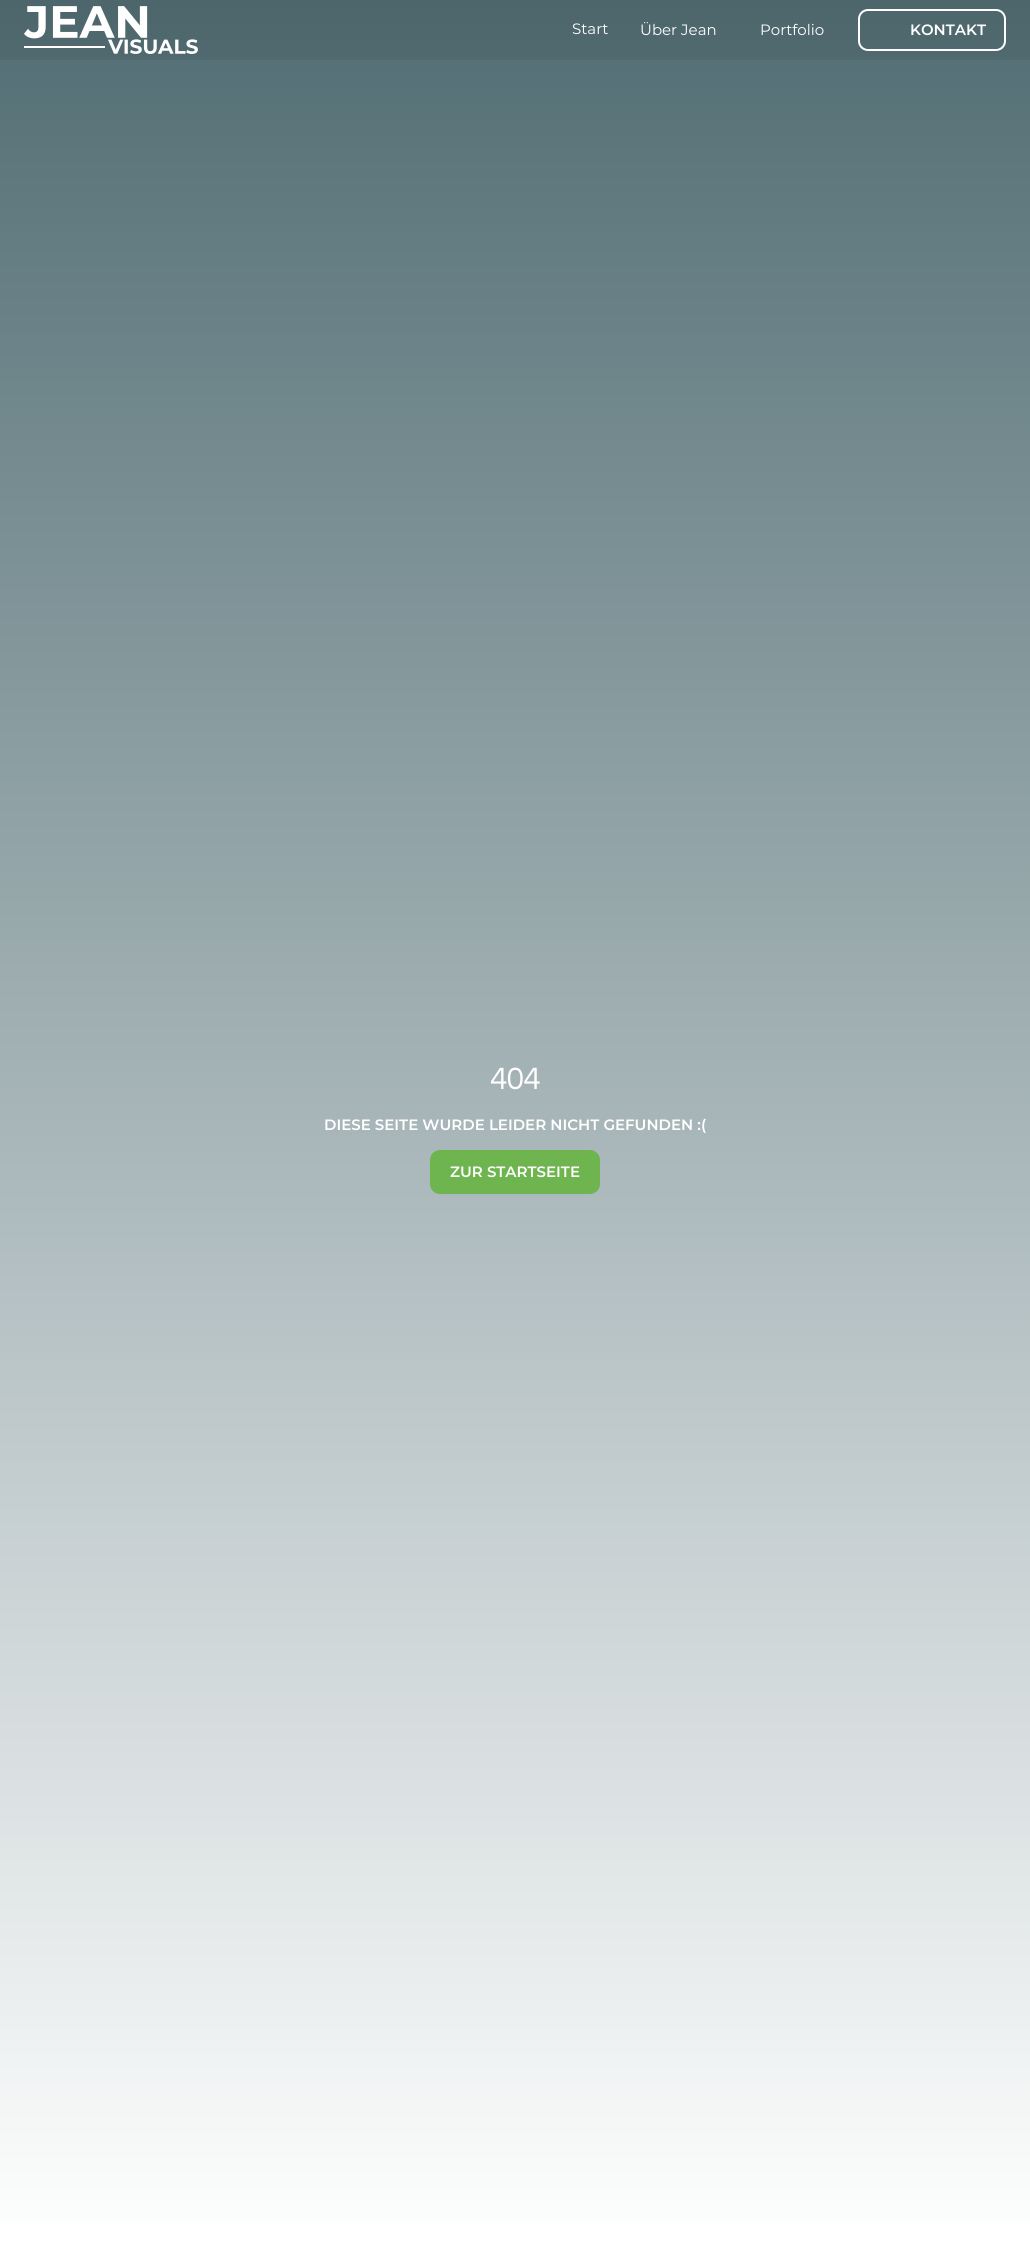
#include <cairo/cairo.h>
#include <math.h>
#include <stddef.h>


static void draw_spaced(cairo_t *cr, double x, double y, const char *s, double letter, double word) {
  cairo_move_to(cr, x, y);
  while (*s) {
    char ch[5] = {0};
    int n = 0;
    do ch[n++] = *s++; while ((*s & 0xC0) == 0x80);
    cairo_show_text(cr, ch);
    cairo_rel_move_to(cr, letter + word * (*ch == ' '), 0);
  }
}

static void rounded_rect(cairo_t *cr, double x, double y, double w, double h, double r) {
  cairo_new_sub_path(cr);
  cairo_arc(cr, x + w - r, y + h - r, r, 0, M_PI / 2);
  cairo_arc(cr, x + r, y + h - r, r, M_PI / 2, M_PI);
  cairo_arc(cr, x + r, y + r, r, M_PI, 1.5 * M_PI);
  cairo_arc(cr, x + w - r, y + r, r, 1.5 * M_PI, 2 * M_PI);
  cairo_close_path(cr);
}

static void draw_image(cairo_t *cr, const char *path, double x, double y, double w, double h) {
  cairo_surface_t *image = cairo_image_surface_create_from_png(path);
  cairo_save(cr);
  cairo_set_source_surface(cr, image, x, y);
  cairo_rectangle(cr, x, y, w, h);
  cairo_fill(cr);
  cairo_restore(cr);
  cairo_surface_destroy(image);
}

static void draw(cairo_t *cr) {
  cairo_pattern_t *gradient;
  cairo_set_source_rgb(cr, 1, 1, 1);
  cairo_paint(cr);
  gradient = cairo_pattern_create_linear(515, 0, 515, 2255);
  cairo_pattern_add_color_stop_rgba(gradient, 0, 81 / 255.0, 109 / 255.0, 115 / 255.0, 1);
  cairo_pattern_add_color_stop_rgba(gradient, 1, 1, 1, 1, 1);
  cairo_set_source(cr, gradient);
  cairo_pattern_destroy(gradient);
  cairo_rectangle(cr, 0, 60, 1030, 2163);
  cairo_fill(cr);
  gradient = cairo_pattern_create_linear(515, 0, 515, 2255);
  cairo_pattern_add_color_stop_rgba(gradient, 0, 76 / 255.0, 102 / 255.0, 108 / 255.0, 1);
  cairo_pattern_add_color_stop_rgba(gradient, 1, 240 / 255.0, 240 / 255.0, 240 / 255.0, 1);
  cairo_set_source(cr, gradient);
  cairo_pattern_destroy(gradient);
  cairo_rectangle(cr, 0, 0, 1030, 60);
  cairo_fill(cr);
  draw_image(cr, "images/1.png", 24, 6, 174, 48);
  rounded_rect(cr, 859, 10, 146, 40, 9);
  cairo_set_source_rgb(cr, 1, 1, 1);
  cairo_stroke(cr);
  cairo_set_source_rgb(cr, 110 / 255.0, 180 / 255.0, 79 / 255.0);
  rounded_rect(cr, 430, 1150, 170, 44, 10);
  cairo_fill(cr);
  cairo_select_font_face(cr, "Montserrat", CAIRO_FONT_SLANT_NORMAL, CAIRO_FONT_WEIGHT_NORMAL);
  cairo_set_font_size(cr, 15);
  cairo_set_source_rgb(cr, 1, 1, 1);
  cairo_move_to(cr, 572, 34);
  cairo_show_text(cr, "Start");
  cairo_move_to(cr, 640, 35);
  cairo_show_text(cr, "Über Jean");
  cairo_move_to(cr, 760, 35);
  cairo_show_text(cr, "Portfolio");
  cairo_select_font_face(cr, "Montserrat SemiBold", CAIRO_FONT_SLANT_NORMAL, CAIRO_FONT_WEIGHT_NORMAL);
  cairo_move_to(cr, 910, 35);
  cairo_show_text(cr, "KONTAKT");
  cairo_select_font_face(cr, "Questrial", CAIRO_FONT_SLANT_NORMAL, CAIRO_FONT_WEIGHT_NORMAL);
  cairo_set_font_size(cr, 32);
  draw_spaced(cr, 490, 1089, "404", -1, 0);
  cairo_select_font_face(cr, "Montserrat SemiBold", CAIRO_FONT_SLANT_NORMAL, CAIRO_FONT_WEIGHT_NORMAL);
  cairo_set_font_size(cr, 15);
  cairo_move_to(cr, 324, 1130);
  cairo_show_text(cr, "DIESE SEITE WURDE LEIDER NICHT GEFUNDEN :(");
  cairo_move_to(cr, 450, 1177);
  cairo_show_text(cr, "ZUR STARTSEITE");
}

int main(void) {
  cairo_surface_t *surface = cairo_image_surface_create(CAIRO_FORMAT_RGB24, 1030, 2255);
  cairo_t *cr = cairo_create(surface);
  cairo_font_options_t *options = cairo_font_options_create();
  cairo_font_options_set_hint_metrics(options, CAIRO_HINT_METRICS_OFF);
  cairo_font_options_set_hint_style(options, CAIRO_HINT_STYLE_NONE);
  cairo_set_font_options(cr, options);
  cairo_set_miter_limit(cr, 4);
  draw(cr);
  cairo_surface_write_to_png(surface, "out.png");
  cairo_font_options_destroy(options);
  cairo_destroy(cr);
  cairo_surface_destroy(surface);
  return 0;
}
